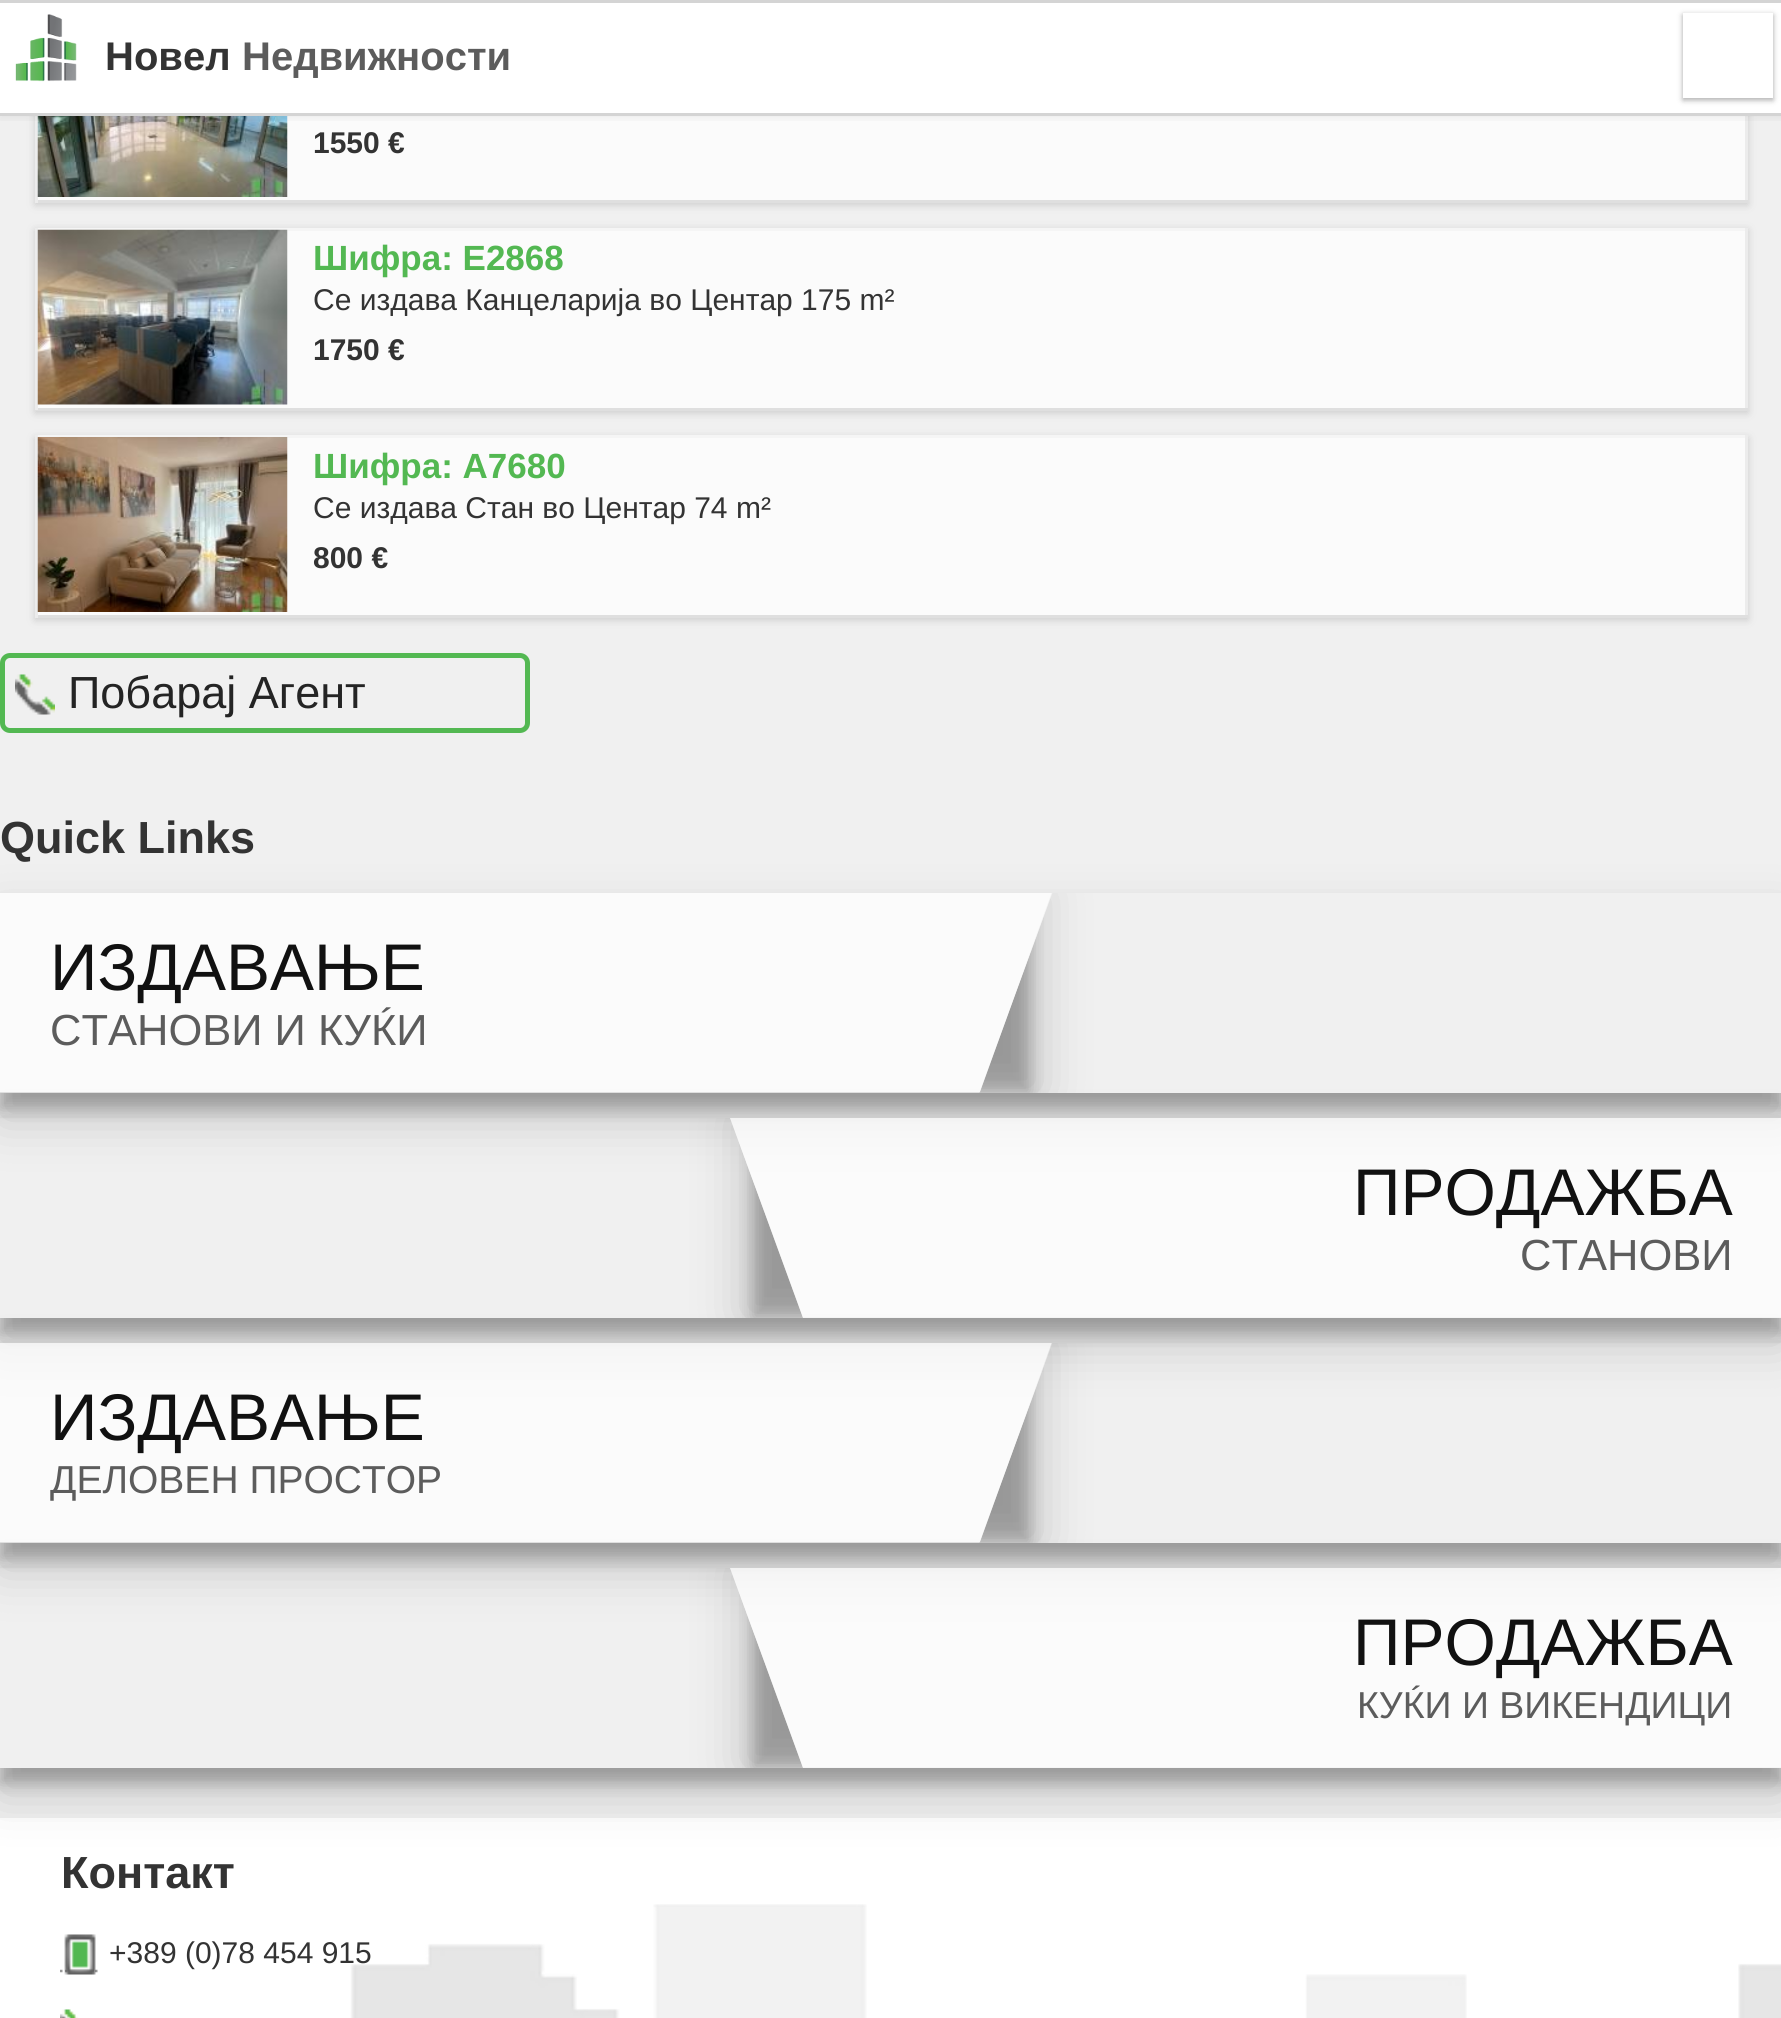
#include <cairo/cairo.h>
#include <math.h>
#include <stddef.h>


static void rounded_rect(cairo_t *cr, double x, double y, double w, double h, double r) {
  cairo_new_sub_path(cr);
  cairo_arc(cr, x + w - r, y + h - r, r, 0, M_PI / 2);
  cairo_arc(cr, x + r, y + h - r, r, M_PI / 2, M_PI);
  cairo_arc(cr, x + r, y + r, r, M_PI, 1.5 * M_PI);
  cairo_arc(cr, x + w - r, y + r, r, 1.5 * M_PI, 2 * M_PI);
  cairo_close_path(cr);
}

static void draw_shadow(cairo_t *cr, double x, double y, double w, double h, double r, double blur, double alpha) {
  cairo_push_group_with_content(cr, CAIRO_CONTENT_ALPHA);
  cairo_set_operator(cr, CAIRO_OPERATOR_SOURCE);
  for (int i = 15; i >= -15 && fmin(w, h) + blur * i / 3 > 0; i -= 2) {
    double e = blur * i / 6;
    cairo_set_source_rgba(cr, 0, 0, 0, alpha * erfc((i - 1) / 8.5) / 2);
    rounded_rect(cr, x - e, y - e, w + 2 * e, h + 2 * e, fmax(0, fmin(r + e + blur * .6, fmin(w, h) / 2 + e)));
    cairo_fill(cr);
  }
  cairo_pattern_t *soft = cairo_pop_group(cr);
  cairo_mask(cr, soft);
  cairo_pattern_destroy(soft);
}

static void draw_image(cairo_t *cr, const char *path, double x, double y, double w, double h) {
  cairo_surface_t *image = cairo_image_surface_create_from_png(path);
  cairo_save(cr);
  cairo_set_source_surface(cr, image, x, y);
  cairo_rectangle(cr, x, y, w, h);
  cairo_fill(cr);
  cairo_restore(cr);
  cairo_surface_destroy(image);
}

static void draw(cairo_t *cr) {
  cairo_set_source_rgb(cr, 240 / 255.0, 240 / 255.0, 240 / 255.0);
  cairo_paint(cr);
  cairo_set_source_rgb(cr, 204 / 255.0, 204 / 255.0, 204 / 255.0);
  draw_shadow(cr, 35, 23, 1713, 182, 0, 4, 1);
  cairo_set_source_rgb(cr, 1, 1, 1);
  cairo_rectangle(cr, 0, 3, 1781, 110);
  cairo_fill(cr);
  cairo_set_source_rgb(cr, 251 / 255.0, 251 / 255.0, 251 / 255.0);
  cairo_rectangle(cr, 38, 116, 1707, 84);
  cairo_fill(cr);
  cairo_set_source_rgb(cr, 236 / 255.0, 236 / 255.0, 236 / 255.0);
  cairo_rectangle(cr, 1745, 116, 3, 87);
  cairo_fill(cr);
  cairo_set_source_rgb(cr, 223 / 255.0, 223 / 255.0, 223 / 255.0);
  cairo_rectangle(cr, 35, 200, 1713, 3);
  cairo_fill(cr);
  cairo_set_source_rgb(cr, 236 / 255.0, 236 / 255.0, 236 / 255.0);
  cairo_rectangle(cr, 35, 116, 3, 87);
  cairo_fill(cr);
  draw_image(cr, "images/2.png", 37, 116, 251, 81);
  cairo_save(cr);
  cairo_rectangle(cr, 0, 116, 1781, 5);
  cairo_clip(cr);
  cairo_set_source_rgb(cr, 0, 0, 0);
  draw_shadow(cr, 0, 3, 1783, 115, 0, 5, 0.07);
  cairo_restore(cr);
  draw_image(cr, "images/1.png", 15, 14, 62, 68);
  cairo_set_source_rgb(cr, 212 / 255.0, 212 / 255.0, 212 / 255.0);
  cairo_rectangle(cr, 0, 0, 1781, 3);
  cairo_fill(cr);
  cairo_rectangle(cr, 0, 113, 1781, 3);
  cairo_fill(cr);
  cairo_set_source_rgb(cr, 0, 0, 0);
  draw_shadow(cr, 1683, 15, 90, 85, 0, 2.5, 0.24);
  draw_shadow(cr, 1683, 15, 90, 85, 0, 4, 0.12);
  cairo_set_source_rgb(cr, 1, 1, 1);
  cairo_rectangle(cr, 1683, 13, 90, 85);
  cairo_fill(cr);
  cairo_set_source_rgb(cr, 204 / 255.0, 204 / 255.0, 204 / 255.0);
  draw_shadow(cr, 35, 230, 1713, 183, 0, 4, 1);
  cairo_set_source_rgb(cr, 251 / 255.0, 251 / 255.0, 251 / 255.0);
  cairo_rectangle(cr, 38, 231, 1707, 177);
  cairo_fill(cr);
  cairo_set_source_rgb(cr, 245 / 255.0, 245 / 255.0, 245 / 255.0);
  cairo_rectangle(cr, 35, 228, 1713, 3);
  cairo_fill(cr);
  cairo_set_source_rgb(cr, 236 / 255.0, 236 / 255.0, 236 / 255.0);
  cairo_rectangle(cr, 1745, 228, 3, 182);
  cairo_fill(cr);
  cairo_set_source_rgb(cr, 223 / 255.0, 223 / 255.0, 223 / 255.0);
  cairo_rectangle(cr, 35, 408, 1713, 3);
  cairo_fill(cr);
  cairo_set_source_rgb(cr, 236 / 255.0, 236 / 255.0, 236 / 255.0);
  cairo_rectangle(cr, 35, 228, 3, 182);
  cairo_fill(cr);
  draw_image(cr, "images/3.png", 37, 229, 251, 176);
  cairo_set_source_rgb(cr, 204 / 255.0, 204 / 255.0, 204 / 255.0);
  draw_shadow(cr, 35, 438, 1713, 182, 0, 4, 1);
  cairo_set_source_rgb(cr, 251 / 255.0, 251 / 255.0, 251 / 255.0);
  cairo_rectangle(cr, 38, 438, 1707, 177);
  cairo_fill(cr);
  cairo_set_source_rgb(cr, 245 / 255.0, 245 / 255.0, 245 / 255.0);
  cairo_rectangle(cr, 35, 435, 1713, 3);
  cairo_fill(cr);
  cairo_set_source_rgb(cr, 236 / 255.0, 236 / 255.0, 236 / 255.0);
  cairo_rectangle(cr, 1745, 435, 3, 183);
  cairo_fill(cr);
  cairo_set_source_rgb(cr, 223 / 255.0, 223 / 255.0, 223 / 255.0);
  cairo_rectangle(cr, 35, 615, 1713, 3);
  cairo_fill(cr);
  cairo_set_source_rgb(cr, 236 / 255.0, 236 / 255.0, 236 / 255.0);
  cairo_rectangle(cr, 35, 435, 3, 183);
  cairo_fill(cr);
  draw_image(cr, "images/4.png", 37, 437, 251, 175);
  rounded_rect(cr, 2.5, 655.5, 525, 75, 7.5);
  cairo_set_source_rgb(cr, 83 / 255.0, 184 / 255.0, 82 / 255.0);
  cairo_set_line_width(cr, 5);
  cairo_stroke(cr);
  draw_image(cr, "images/5.png", 15, 674, 40, 41);
  cairo_save(cr);
  cairo_set_fill_rule(cr, CAIRO_FILL_RULE_EVEN_ODD);
  cairo_new_path(cr);
  cairo_move_to(cr, 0, 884);
  cairo_line_to(cr, 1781, 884);
  cairo_line_to(cr, 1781, 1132);
  cairo_line_to(cr, 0, 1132);
  cairo_close_path(cr);
  cairo_move_to(cr, 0, 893);
  cairo_line_to(cr, 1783, 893);
  cairo_line_to(cr, 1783, 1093);
  cairo_line_to(cr, 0, 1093);
  cairo_close_path(cr);
  cairo_clip(cr);
  cairo_set_source_rgb(cr, 0, 0, 0);
  draw_shadow(cr, 0, 908, 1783, 200, 0, 7.5, 0.23);
  cairo_restore(cr);
  cairo_save(cr);
  cairo_set_fill_rule(cr, CAIRO_FILL_RULE_EVEN_ODD);
  cairo_new_path(cr);
  cairo_move_to(cr, 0, 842);
  cairo_line_to(cr, 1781, 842);
  cairo_line_to(cr, 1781, 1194);
  cairo_line_to(cr, 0, 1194);
  cairo_close_path(cr);
  cairo_move_to(cr, 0, 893);
  cairo_line_to(cr, 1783, 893);
  cairo_line_to(cr, 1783, 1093);
  cairo_line_to(cr, 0, 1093);
  cairo_close_path(cr);
  cairo_clip(cr);
  cairo_set_source_rgb(cr, 0, 0, 0);
  draw_shadow(cr, 0, 918, 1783, 200, 0, 25, 0.19);
  cairo_restore(cr);
  cairo_save(cr);
  cairo_rectangle(cr, 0, 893, 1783, 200);
  cairo_clip(cr);
  cairo_set_fill_rule(cr, CAIRO_FILL_RULE_EVEN_ODD);
  cairo_new_path(cr);
  cairo_move_to(cr, 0, 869);
  cairo_line_to(cr, 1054, 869);
  cairo_line_to(cr, 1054, 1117);
  cairo_line_to(cr, 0, 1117);
  cairo_close_path(cr);
  cairo_move_to(cr, -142, 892.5);
  cairo_line_to(cr, 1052.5, 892.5);
  cairo_line_to(cr, 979.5, 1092.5);
  cairo_line_to(cr, -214.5, 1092.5);
  cairo_close_path(cr);
  cairo_clip(cr);
  cairo_set_source_rgb(cr, 0, 0, 0);
  draw_shadow(cr, -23, 893, 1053, 200, 0, 7.5, 0.23);
  cairo_restore(cr);
  cairo_save(cr);
  cairo_rectangle(cr, 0, 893, 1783, 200);
  cairo_clip(cr);
  cairo_set_fill_rule(cr, CAIRO_FILL_RULE_EVEN_ODD);
  cairo_new_path(cr);
  cairo_move_to(cr, 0, 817);
  cairo_line_to(cr, 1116, 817);
  cairo_line_to(cr, 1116, 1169);
  cairo_line_to(cr, 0, 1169);
  cairo_close_path(cr);
  cairo_move_to(cr, -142, 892.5);
  cairo_line_to(cr, 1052.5, 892.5);
  cairo_line_to(cr, 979.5, 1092.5);
  cairo_line_to(cr, -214.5, 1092.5);
  cairo_close_path(cr);
  cairo_clip(cr);
  cairo_set_source_rgb(cr, 0, 0, 0);
  draw_shadow(cr, -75, 893, 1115, 200, 0, 25, 0.19);
  cairo_restore(cr);
  cairo_save(cr);
  cairo_rectangle(cr, 0, 893, 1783, 200);
  cairo_clip(cr);
  cairo_set_source_rgba(cr, 1, 1, 1, 0.7);
  cairo_new_path(cr);
  cairo_move_to(cr, -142, 892);
  cairo_line_to(cr, 1052, 892);
  cairo_line_to(cr, 980, 1092);
  cairo_line_to(cr, -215, 1092);
  cairo_close_path(cr);
  cairo_fill(cr);
  cairo_restore(cr);
  cairo_save(cr);
  cairo_set_fill_rule(cr, CAIRO_FILL_RULE_EVEN_ODD);
  cairo_new_path(cr);
  cairo_move_to(cr, 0, 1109);
  cairo_line_to(cr, 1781, 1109);
  cairo_line_to(cr, 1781, 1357);
  cairo_line_to(cr, 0, 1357);
  cairo_close_path(cr);
  cairo_move_to(cr, 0, 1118);
  cairo_line_to(cr, 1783, 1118);
  cairo_line_to(cr, 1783, 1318);
  cairo_line_to(cr, 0, 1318);
  cairo_close_path(cr);
  cairo_clip(cr);
  cairo_set_source_rgb(cr, 0, 0, 0);
  draw_shadow(cr, 0, 1133, 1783, 200, 0, 7.5, 0.23);
  cairo_restore(cr);
  cairo_save(cr);
  cairo_set_fill_rule(cr, CAIRO_FILL_RULE_EVEN_ODD);
  cairo_new_path(cr);
  cairo_move_to(cr, 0, 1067);
  cairo_line_to(cr, 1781, 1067);
  cairo_line_to(cr, 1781, 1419);
  cairo_line_to(cr, 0, 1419);
  cairo_close_path(cr);
  cairo_move_to(cr, 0, 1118);
  cairo_line_to(cr, 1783, 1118);
  cairo_line_to(cr, 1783, 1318);
  cairo_line_to(cr, 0, 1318);
  cairo_close_path(cr);
  cairo_clip(cr);
  cairo_set_source_rgb(cr, 0, 0, 0);
  draw_shadow(cr, 0, 1143, 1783, 200, 0, 25, 0.19);
  cairo_restore(cr);
  cairo_save(cr);
  cairo_rectangle(cr, 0, 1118, 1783, 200);
  cairo_clip(cr);
  cairo_set_fill_rule(cr, CAIRO_FILL_RULE_EVEN_ODD);
  cairo_new_path(cr);
  cairo_move_to(cr, 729, 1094);
  cairo_line_to(cr, 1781, 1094);
  cairo_line_to(cr, 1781, 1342);
  cairo_line_to(cr, 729, 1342);
  cairo_close_path(cr);
  cairo_move_to(cr, 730, 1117.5);
  cairo_line_to(cr, 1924.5, 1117.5);
  cairo_line_to(cr, 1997, 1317.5);
  cairo_line_to(cr, 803, 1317.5);
  cairo_close_path(cr);
  cairo_clip(cr);
  cairo_set_source_rgb(cr, 0, 0, 0);
  draw_shadow(cr, 753, 1118, 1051, 200, 0, 7.5, 0.23);
  cairo_restore(cr);
  cairo_save(cr);
  cairo_rectangle(cr, 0, 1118, 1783, 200);
  cairo_clip(cr);
  cairo_set_fill_rule(cr, CAIRO_FILL_RULE_EVEN_ODD);
  cairo_new_path(cr);
  cairo_move_to(cr, 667, 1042);
  cairo_line_to(cr, 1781, 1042);
  cairo_line_to(cr, 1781, 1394);
  cairo_line_to(cr, 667, 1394);
  cairo_close_path(cr);
  cairo_move_to(cr, 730, 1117.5);
  cairo_line_to(cr, 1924.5, 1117.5);
  cairo_line_to(cr, 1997, 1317.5);
  cairo_line_to(cr, 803, 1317.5);
  cairo_close_path(cr);
  cairo_clip(cr);
  cairo_set_source_rgb(cr, 0, 0, 0);
  draw_shadow(cr, 743, 1118, 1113, 200, 0, 25, 0.19);
  cairo_restore(cr);
  cairo_set_source_rgba(cr, 1, 1, 1, 0.7);
  cairo_new_path(cr);
  cairo_move_to(cr, 730, 1118);
  cairo_line_to(cr, 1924, 1118);
  cairo_line_to(cr, 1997, 1318);
  cairo_line_to(cr, 803, 1318);
  cairo_close_path(cr);
  cairo_fill(cr);
  cairo_save(cr);
  cairo_set_fill_rule(cr, CAIRO_FILL_RULE_EVEN_ODD);
  cairo_new_path(cr);
  cairo_move_to(cr, 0, 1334);
  cairo_line_to(cr, 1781, 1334);
  cairo_line_to(cr, 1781, 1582);
  cairo_line_to(cr, 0, 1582);
  cairo_close_path(cr);
  cairo_move_to(cr, 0, 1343);
  cairo_line_to(cr, 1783, 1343);
  cairo_line_to(cr, 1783, 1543);
  cairo_line_to(cr, 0, 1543);
  cairo_close_path(cr);
  cairo_clip(cr);
  cairo_set_source_rgb(cr, 0, 0, 0);
  draw_shadow(cr, 0, 1358, 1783, 200, 0, 7.5, 0.23);
  cairo_restore(cr);
  cairo_save(cr);
  cairo_set_fill_rule(cr, CAIRO_FILL_RULE_EVEN_ODD);
  cairo_new_path(cr);
  cairo_move_to(cr, 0, 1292);
  cairo_line_to(cr, 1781, 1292);
  cairo_line_to(cr, 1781, 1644);
  cairo_line_to(cr, 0, 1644);
  cairo_close_path(cr);
  cairo_move_to(cr, 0, 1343);
  cairo_line_to(cr, 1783, 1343);
  cairo_line_to(cr, 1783, 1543);
  cairo_line_to(cr, 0, 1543);
  cairo_close_path(cr);
  cairo_clip(cr);
  cairo_set_source_rgb(cr, 0, 0, 0);
  draw_shadow(cr, 0, 1368, 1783, 200, 0, 25, 0.19);
  cairo_restore(cr);
  cairo_save(cr);
  cairo_rectangle(cr, 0, 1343, 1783, 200);
  cairo_clip(cr);
  cairo_set_fill_rule(cr, CAIRO_FILL_RULE_EVEN_ODD);
  cairo_new_path(cr);
  cairo_move_to(cr, 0, 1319);
  cairo_line_to(cr, 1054, 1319);
  cairo_line_to(cr, 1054, 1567);
  cairo_line_to(cr, 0, 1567);
  cairo_close_path(cr);
  cairo_move_to(cr, -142, 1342.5);
  cairo_line_to(cr, 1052.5, 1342.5);
  cairo_line_to(cr, 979.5, 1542.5);
  cairo_line_to(cr, -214.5, 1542.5);
  cairo_close_path(cr);
  cairo_clip(cr);
  cairo_set_source_rgb(cr, 0, 0, 0);
  draw_shadow(cr, -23, 1343, 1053, 200, 0, 7.5, 0.23);
  cairo_restore(cr);
  cairo_save(cr);
  cairo_rectangle(cr, 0, 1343, 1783, 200);
  cairo_clip(cr);
  cairo_set_fill_rule(cr, CAIRO_FILL_RULE_EVEN_ODD);
  cairo_new_path(cr);
  cairo_move_to(cr, 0, 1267);
  cairo_line_to(cr, 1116, 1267);
  cairo_line_to(cr, 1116, 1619);
  cairo_line_to(cr, 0, 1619);
  cairo_close_path(cr);
  cairo_move_to(cr, -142, 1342.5);
  cairo_line_to(cr, 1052.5, 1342.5);
  cairo_line_to(cr, 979.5, 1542.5);
  cairo_line_to(cr, -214.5, 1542.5);
  cairo_close_path(cr);
  cairo_clip(cr);
  cairo_set_source_rgb(cr, 0, 0, 0);
  draw_shadow(cr, -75, 1343, 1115, 200, 0, 25, 0.19);
  cairo_restore(cr);
  cairo_save(cr);
  cairo_rectangle(cr, 0, 1343, 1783, 200);
  cairo_clip(cr);
  cairo_new_path(cr);
  cairo_move_to(cr, -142, 1342);
  cairo_line_to(cr, 1052, 1342);
  cairo_line_to(cr, 980, 1542);
  cairo_line_to(cr, -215, 1542);
  cairo_close_path(cr);
  cairo_fill(cr);
  cairo_restore(cr);
  cairo_save(cr);
  cairo_set_fill_rule(cr, CAIRO_FILL_RULE_EVEN_ODD);
  cairo_new_path(cr);
  cairo_move_to(cr, 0, 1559);
  cairo_line_to(cr, 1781, 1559);
  cairo_line_to(cr, 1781, 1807);
  cairo_line_to(cr, 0, 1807);
  cairo_close_path(cr);
  cairo_move_to(cr, 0, 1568);
  cairo_line_to(cr, 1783, 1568);
  cairo_line_to(cr, 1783, 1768);
  cairo_line_to(cr, 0, 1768);
  cairo_close_path(cr);
  cairo_clip(cr);
  cairo_set_source_rgb(cr, 0, 0, 0);
  draw_shadow(cr, 0, 1583, 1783, 200, 0, 7.5, 0.23);
  cairo_restore(cr);
  cairo_set_source_rgb(cr, 1, 1, 1);
  cairo_rectangle(cr, 0, 1818, 1781, 200);
  cairo_fill(cr);
  cairo_save(cr);
  cairo_set_fill_rule(cr, CAIRO_FILL_RULE_EVEN_ODD);
  cairo_new_path(cr);
  cairo_move_to(cr, 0, 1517);
  cairo_line_to(cr, 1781, 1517);
  cairo_line_to(cr, 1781, 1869);
  cairo_line_to(cr, 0, 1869);
  cairo_close_path(cr);
  cairo_move_to(cr, 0, 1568);
  cairo_line_to(cr, 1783, 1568);
  cairo_line_to(cr, 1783, 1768);
  cairo_line_to(cr, 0, 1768);
  cairo_close_path(cr);
  cairo_clip(cr);
  cairo_set_source_rgb(cr, 0, 0, 0);
  draw_shadow(cr, 0, 1593, 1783, 200, 0, 25, 0.19);
  cairo_restore(cr);
  cairo_save(cr);
  cairo_rectangle(cr, 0, 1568, 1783, 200);
  cairo_clip(cr);
  cairo_set_fill_rule(cr, CAIRO_FILL_RULE_EVEN_ODD);
  cairo_new_path(cr);
  cairo_move_to(cr, 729, 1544);
  cairo_line_to(cr, 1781, 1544);
  cairo_line_to(cr, 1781, 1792);
  cairo_line_to(cr, 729, 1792);
  cairo_close_path(cr);
  cairo_move_to(cr, 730, 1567.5);
  cairo_line_to(cr, 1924.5, 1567.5);
  cairo_line_to(cr, 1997, 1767.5);
  cairo_line_to(cr, 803, 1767.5);
  cairo_close_path(cr);
  cairo_clip(cr);
  cairo_set_source_rgb(cr, 0, 0, 0);
  draw_shadow(cr, 753, 1568, 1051, 200, 0, 7.5, 0.23);
  cairo_restore(cr);
  cairo_save(cr);
  cairo_rectangle(cr, 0, 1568, 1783, 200);
  cairo_clip(cr);
  cairo_set_fill_rule(cr, CAIRO_FILL_RULE_EVEN_ODD);
  cairo_new_path(cr);
  cairo_move_to(cr, 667, 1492);
  cairo_line_to(cr, 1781, 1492);
  cairo_line_to(cr, 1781, 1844);
  cairo_line_to(cr, 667, 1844);
  cairo_close_path(cr);
  cairo_move_to(cr, 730, 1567.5);
  cairo_line_to(cr, 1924.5, 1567.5);
  cairo_line_to(cr, 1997, 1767.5);
  cairo_line_to(cr, 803, 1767.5);
  cairo_close_path(cr);
  cairo_clip(cr);
  cairo_set_source_rgb(cr, 0, 0, 0);
  draw_shadow(cr, 743, 1568, 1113, 200, 0, 25, 0.19);
  cairo_restore(cr);
  cairo_set_source_rgba(cr, 1, 1, 1, 0.7);
  cairo_new_path(cr);
  cairo_move_to(cr, 730, 1568);
  cairo_line_to(cr, 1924, 1568);
  cairo_line_to(cr, 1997, 1768);
  cairo_line_to(cr, 803, 1768);
  cairo_close_path(cr);
  cairo_fill(cr);
  draw_image(cr, "images/6.png", 350, 1904, 1431, 114);
  cairo_new_path(cr);
  cairo_move_to(cr, 60, 1971);
  cairo_line_to(cr, 100, 1971);
  cairo_set_source_rgb(cr, 153 / 255.0, 153 / 255.0, 153 / 255.0);
  cairo_set_line_width(cr, 2.5);
  cairo_set_dash(cr, (double[]){2.5, 2.5}, 2, 0);
  cairo_stroke(cr);
  draw_image(cr, "images/7.png", 64, 1934, 32, 41);
  draw_image(cr, "images/8.png", 60, 2009, 18, 9);
  cairo_select_font_face(cr, "Liberation Sans", CAIRO_FONT_SLANT_NORMAL, CAIRO_FONT_WEIGHT_BOLD);
  cairo_set_font_size(cr, 40);
  cairo_set_source_rgb(cr, 51 / 255.0, 51 / 255.0, 51 / 255.0);
  cairo_move_to(cr, 105, 70);
  cairo_show_text(cr, "Новел");
  cairo_set_source_rgb(cr, 92 / 255.0, 92 / 255.0, 92 / 255.0);
  cairo_move_to(cr, 242, 70);
  cairo_show_text(cr, "Недвижности");
  cairo_set_font_size(cr, 30);
  cairo_set_source_rgb(cr, 51 / 255.0, 51 / 255.0, 51 / 255.0);
  cairo_move_to(cr, 313, 153);
  cairo_show_text(cr, "1550 €");
  cairo_set_font_size(cr, 35);
  cairo_set_source_rgb(cr, 83 / 255.0, 184 / 255.0, 82 / 255.0);
  cairo_move_to(cr, 313, 270);
  cairo_show_text(cr, "Шифра: E2868");
  cairo_select_font_face(cr, "Liberation Sans", CAIRO_FONT_SLANT_NORMAL, CAIRO_FONT_WEIGHT_NORMAL);
  cairo_set_font_size(cr, 30);
  cairo_set_source_rgb(cr, 51 / 255.0, 51 / 255.0, 51 / 255.0);
  cairo_move_to(cr, 313, 310);
  cairo_show_text(cr, "Се издава Канцеларија во Центар 175 m²");
  cairo_select_font_face(cr, "Liberation Sans", CAIRO_FONT_SLANT_NORMAL, CAIRO_FONT_WEIGHT_BOLD);
  cairo_move_to(cr, 313, 360);
  cairo_show_text(cr, "1750 €");
  cairo_set_font_size(cr, 35);
  cairo_set_source_rgb(cr, 83 / 255.0, 184 / 255.0, 82 / 255.0);
  cairo_move_to(cr, 313, 478);
  cairo_show_text(cr, "Шифра: A7680");
  cairo_select_font_face(cr, "Liberation Sans", CAIRO_FONT_SLANT_NORMAL, CAIRO_FONT_WEIGHT_NORMAL);
  cairo_set_font_size(cr, 30);
  cairo_set_source_rgb(cr, 51 / 255.0, 51 / 255.0, 51 / 255.0);
  cairo_move_to(cr, 313, 518);
  cairo_show_text(cr, "Се издава Стан во Центар 74 m²");
  cairo_select_font_face(cr, "Liberation Sans", CAIRO_FONT_SLANT_NORMAL, CAIRO_FONT_WEIGHT_BOLD);
  cairo_move_to(cr, 313, 568);
  cairo_show_text(cr, "800 €");
  cairo_select_font_face(cr, "Liberation Sans", CAIRO_FONT_SLANT_NORMAL, CAIRO_FONT_WEIGHT_NORMAL);
  cairo_set_font_size(cr, 45);
  cairo_set_source_rgb(cr, 36 / 255.0, 36 / 255.0, 36 / 255.0);
  cairo_move_to(cr, 68, 708);
  cairo_show_text(cr, "Побарај Агент");
  cairo_select_font_face(cr, "Liberation Sans", CAIRO_FONT_SLANT_NORMAL, CAIRO_FONT_WEIGHT_BOLD);
  cairo_set_source_rgb(cr, 51 / 255.0, 51 / 255.0, 51 / 255.0);
  cairo_move_to(cr, 0, 853);
  cairo_show_text(cr, "Quick Links");
  cairo_select_font_face(cr, "Liberation Sans", CAIRO_FONT_SLANT_NORMAL, CAIRO_FONT_WEIGHT_NORMAL);
  cairo_set_font_size(cr, 66);
  cairo_set_source_rgb(cr, 17 / 255.0, 17 / 255.0, 17 / 255.0);
  cairo_move_to(cr, 50, 990);
  cairo_show_text(cr, "ИЗДАВАЊЕ");
  cairo_set_font_size(cr, 43.5);
  cairo_set_source_rgb(cr, 92 / 255.0, 92 / 255.0, 92 / 255.0);
  cairo_move_to(cr, 50, 1045);
  cairo_show_text(cr, "СТАНОВИ И КУЌИ");
  cairo_set_font_size(cr, 66);
  cairo_set_source_rgb(cr, 17 / 255.0, 17 / 255.0, 17 / 255.0);
  cairo_move_to(cr, 1353, 1215);
  cairo_show_text(cr, "ПРОДАЖБА");
  cairo_set_font_size(cr, 43.5);
  cairo_set_source_rgb(cr, 92 / 255.0, 92 / 255.0, 92 / 255.0);
  cairo_move_to(cr, 1520, 1270);
  cairo_show_text(cr, "СТАНОВИ");
  cairo_set_font_size(cr, 66);
  cairo_set_source_rgb(cr, 17 / 255.0, 17 / 255.0, 17 / 255.0);
  cairo_move_to(cr, 50, 1440);
  cairo_show_text(cr, "ИЗДАВАЊЕ");
  cairo_set_font_size(cr, 39);
  cairo_set_source_rgb(cr, 92 / 255.0, 92 / 255.0, 92 / 255.0);
  cairo_move_to(cr, 50, 1493);
  cairo_show_text(cr, "ДЕЛОВЕН ПРОСТОР");
  cairo_set_font_size(cr, 66);
  cairo_set_source_rgb(cr, 17 / 255.0, 17 / 255.0, 17 / 255.0);
  cairo_move_to(cr, 1353, 1665);
  cairo_show_text(cr, "ПРОДАЖБА");
  cairo_set_font_size(cr, 37.5);
  cairo_set_source_rgb(cr, 92 / 255.0, 92 / 255.0, 92 / 255.0);
  cairo_move_to(cr, 1357, 1718);
  cairo_show_text(cr, "КУЌИ И ВИКЕНДИЦИ");
  cairo_select_font_face(cr, "Liberation Sans", CAIRO_FONT_SLANT_NORMAL, CAIRO_FONT_WEIGHT_BOLD);
  cairo_set_font_size(cr, 45);
  cairo_set_source_rgb(cr, 51 / 255.0, 51 / 255.0, 51 / 255.0);
  cairo_move_to(cr, 61, 1888);
  cairo_show_text(cr, "Контакт");
  cairo_select_font_face(cr, "Liberation Sans", CAIRO_FONT_SLANT_NORMAL, CAIRO_FONT_WEIGHT_NORMAL);
  cairo_set_font_size(cr, 30);
  cairo_move_to(cr, 109, 1963);
  cairo_show_text(cr, "+389 (0)78 454 915");
}

int main(void) {
  cairo_surface_t *surface = cairo_image_surface_create(CAIRO_FORMAT_RGB24, 1781, 2018);
  cairo_t *cr = cairo_create(surface);
  cairo_font_options_t *options = cairo_font_options_create();
  cairo_font_options_set_hint_metrics(options, CAIRO_HINT_METRICS_OFF);
  cairo_font_options_set_hint_style(options, CAIRO_HINT_STYLE_NONE);
  cairo_set_font_options(cr, options);
  cairo_set_miter_limit(cr, 4);
  draw(cr);
  cairo_surface_write_to_png(surface, "out.png");
  cairo_font_options_destroy(options);
  cairo_destroy(cr);
  cairo_surface_destroy(surface);
  return 0;
}
